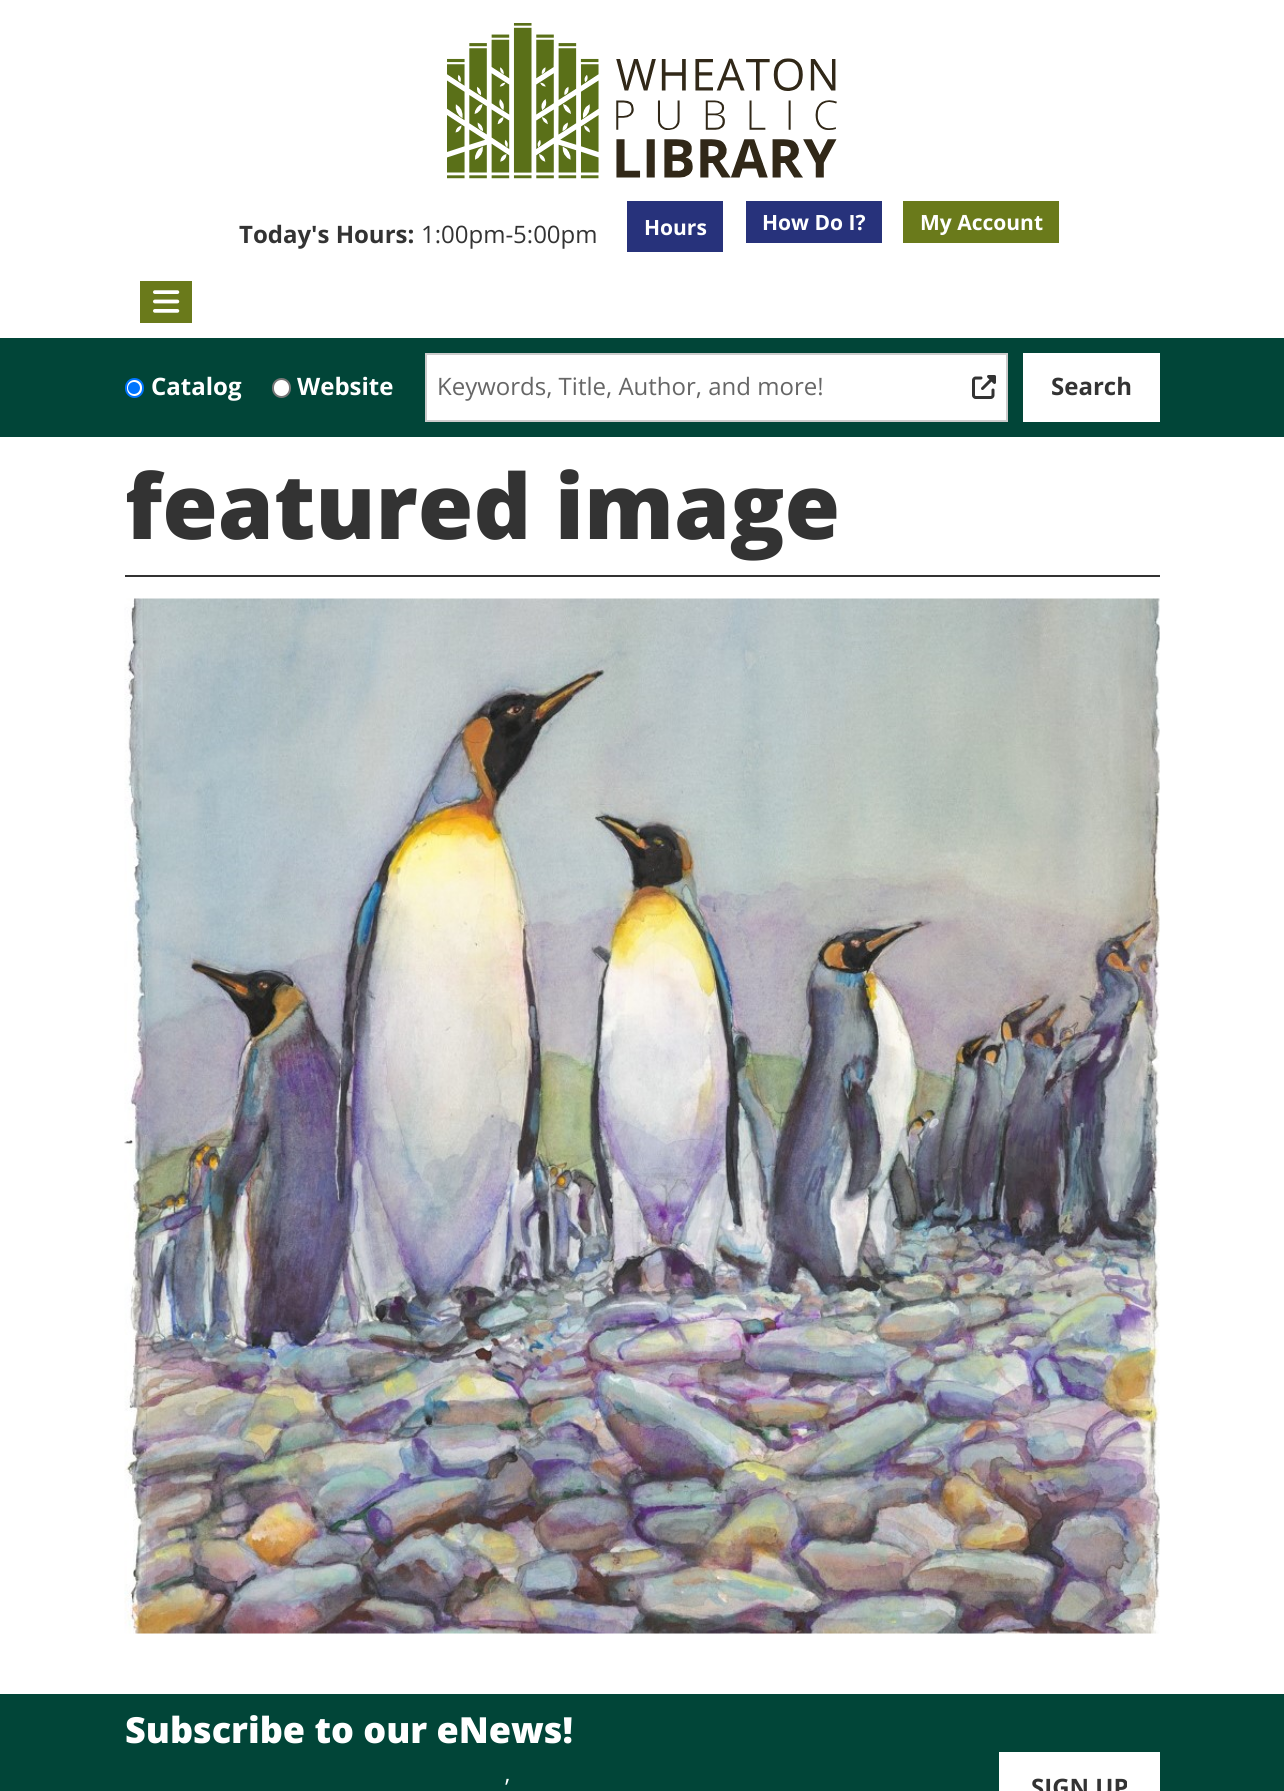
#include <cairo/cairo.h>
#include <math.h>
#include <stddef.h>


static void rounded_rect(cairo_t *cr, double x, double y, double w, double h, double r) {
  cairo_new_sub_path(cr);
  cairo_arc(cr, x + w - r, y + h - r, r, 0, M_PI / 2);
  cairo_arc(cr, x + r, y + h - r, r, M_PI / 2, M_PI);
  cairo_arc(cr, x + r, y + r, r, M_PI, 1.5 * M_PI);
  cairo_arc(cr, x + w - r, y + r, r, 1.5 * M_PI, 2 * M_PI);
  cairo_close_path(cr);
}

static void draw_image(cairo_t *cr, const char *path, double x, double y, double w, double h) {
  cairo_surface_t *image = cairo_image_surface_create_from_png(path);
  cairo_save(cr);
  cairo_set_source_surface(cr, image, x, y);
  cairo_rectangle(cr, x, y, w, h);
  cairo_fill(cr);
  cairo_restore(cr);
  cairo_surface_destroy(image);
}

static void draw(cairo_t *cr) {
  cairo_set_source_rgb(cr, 1, 1, 1);
  cairo_paint(cr);
  draw_image(cr, "images/1.png", 447, 23, 390, 156);
  cairo_set_source_rgb(cr, 39 / 255.0, 50 / 255.0, 123 / 255.0);
  cairo_rectangle(cr, 627, 201, 96, 51);
  cairo_fill(cr);
  cairo_rectangle(cr, 746, 201, 136, 42);
  cairo_fill(cr);
  cairo_set_source_rgb(cr, 106 / 255.0, 122 / 255.0, 27 / 255.0);
  cairo_rectangle(cr, 903, 201, 156, 42);
  cairo_fill(cr);
  cairo_rectangle(cr, 140, 281, 52, 42);
  cairo_fill(cr);
  draw_image(cr, "images/2.png", 153, 290, 27, 23);
  cairo_set_source_rgb(cr, 1 / 255.0, 69 / 255.0, 56 / 255.0);
  cairo_rectangle(cr, 0, 338, 1284, 99);
  cairo_fill(cr);
  cairo_set_source_rgb(cr, 1, 1, 1);
  rounded_rect(cr, 126, 379, 17, 18, 8.5);
  cairo_fill_preserve(cr);
  cairo_set_source_rgb(cr, 0, 117 / 255.0, 1);
  cairo_stroke(cr);
  cairo_arc(cr, 134, 388, 6, 0, 2 * M_PI);
  cairo_fill(cr);
  cairo_set_source_rgb(cr, 1, 1, 1);
  rounded_rect(cr, 273, 379, 17, 18, 8.5);
  cairo_fill_preserve(cr);
  cairo_set_source_rgb(cr, 118 / 255.0, 118 / 255.0, 118 / 255.0);
  cairo_stroke(cr);
  cairo_set_source_rgb(cr, 1, 1, 1);
  cairo_rectangle(cr, 426, 354, 581, 67);
  cairo_fill_preserve(cr);
  cairo_set_source_rgb(cr, 204 / 255.0, 204 / 255.0, 204 / 255.0);
  cairo_stroke(cr);
  draw_image(cr, "images/3.png", 972, 375, 24, 24);
  cairo_set_source_rgb(cr, 1, 1, 1);
  cairo_rectangle(cr, 1023, 353, 137, 69);
  cairo_fill(cr);
  cairo_set_source_rgb(cr, 51 / 255.0, 51 / 255.0, 51 / 255.0);
  cairo_rectangle(cr, 125, 575, 1035, 2);
  cairo_fill(cr);
  draw_image(cr, "images/4.png", 124, 598, 1036, 1036);
  cairo_set_source_rgb(cr, 1 / 255.0, 69 / 255.0, 56 / 255.0);
  cairo_rectangle(cr, 0, 1694, 1284, 97);
  cairo_fill(cr);
  cairo_set_source_rgb(cr, 1, 1, 1);
  cairo_rectangle(cr, 999, 1752, 161, 39);
  cairo_fill(cr);
  cairo_select_font_face(cr, "Open Sans", CAIRO_FONT_SLANT_NORMAL, CAIRO_FONT_WEIGHT_BOLD);
  cairo_set_font_size(cr, 24);
  cairo_set_source_rgb(cr, 51 / 255.0, 51 / 255.0, 51 / 255.0);
  cairo_move_to(cr, 239, 243);
  cairo_show_text(cr, "Today's Hours:");
  cairo_select_font_face(cr, "Open Sans", CAIRO_FONT_SLANT_NORMAL, CAIRO_FONT_WEIGHT_NORMAL);
  cairo_move_to(cr, 421, 243);
  cairo_show_text(cr, "1:00pm-5:00pm");
  cairo_select_font_face(cr, "Open Sans", CAIRO_FONT_SLANT_NORMAL, CAIRO_FONT_WEIGHT_BOLD);
  cairo_set_font_size(cr, 21);
  cairo_set_source_rgb(cr, 1, 1, 1);
  cairo_move_to(cr, 644, 235);
  cairo_show_text(cr, "Hours");
  cairo_move_to(cr, 762, 230);
  cairo_show_text(cr, "How Do I?");
  cairo_move_to(cr, 920, 230);
  cairo_show_text(cr, "My Account");
  cairo_set_font_size(cr, 24);
  cairo_move_to(cr, 151, 395);
  cairo_show_text(cr, "Catalog");
  cairo_move_to(cr, 297, 395);
  cairo_show_text(cr, "Website");
  cairo_select_font_face(cr, "Open Sans", CAIRO_FONT_SLANT_NORMAL, CAIRO_FONT_WEIGHT_NORMAL);
  cairo_set_source_rgb(cr, 102 / 255.0, 102 / 255.0, 102 / 255.0);
  cairo_move_to(cr, 437, 395);
  cairo_show_text(cr, "Keywords, Title, Author, and more!");
  cairo_select_font_face(cr, "Open Sans", CAIRO_FONT_SLANT_NORMAL, CAIRO_FONT_WEIGHT_BOLD);
  cairo_set_source_rgb(cr, 51 / 255.0, 51 / 255.0, 51 / 255.0);
  cairo_move_to(cr, 1051, 395);
  cairo_show_text(cr, "Search");
  cairo_select_font_face(cr, "Open Sans ExtraBold", CAIRO_FONT_SLANT_NORMAL, CAIRO_FONT_WEIGHT_NORMAL);
  cairo_set_font_size(cr, 90);
  cairo_move_to(cr, 125, 539);
  cairo_show_text(cr, "featured image");
  cairo_set_font_size(cr, 36);
  cairo_set_source_rgb(cr, 1, 1, 1);
  cairo_move_to(cr, 125, 1743);
  cairo_show_text(cr, "Subscribe to our eNews!");
  cairo_select_font_face(cr, "Open Sans", CAIRO_FONT_SLANT_NORMAL, CAIRO_FONT_WEIGHT_NORMAL);
  cairo_set_font_size(cr, 24);
  cairo_move_to(cr, 505, 1796);
  cairo_show_text(cr, "’");
  cairo_select_font_face(cr, "Open Sans", CAIRO_FONT_SLANT_NORMAL, CAIRO_FONT_WEIGHT_BOLD);
  cairo_set_source_rgb(cr, 51 / 255.0, 51 / 255.0, 51 / 255.0);
  cairo_move_to(cr, 1031, 1796);
  cairo_show_text(cr, "SIGN UP");
}

int main(void) {
  cairo_surface_t *surface = cairo_image_surface_create(CAIRO_FORMAT_RGB24, 1284, 1791);
  cairo_t *cr = cairo_create(surface);
  cairo_font_options_t *options = cairo_font_options_create();
  cairo_font_options_set_hint_metrics(options, CAIRO_HINT_METRICS_OFF);
  cairo_font_options_set_hint_style(options, CAIRO_HINT_STYLE_NONE);
  cairo_set_font_options(cr, options);
  cairo_set_miter_limit(cr, 4);
  draw(cr);
  cairo_surface_write_to_png(surface, "out.png");
  cairo_font_options_destroy(options);
  cairo_destroy(cr);
  cairo_surface_destroy(surface);
  return 0;
}
